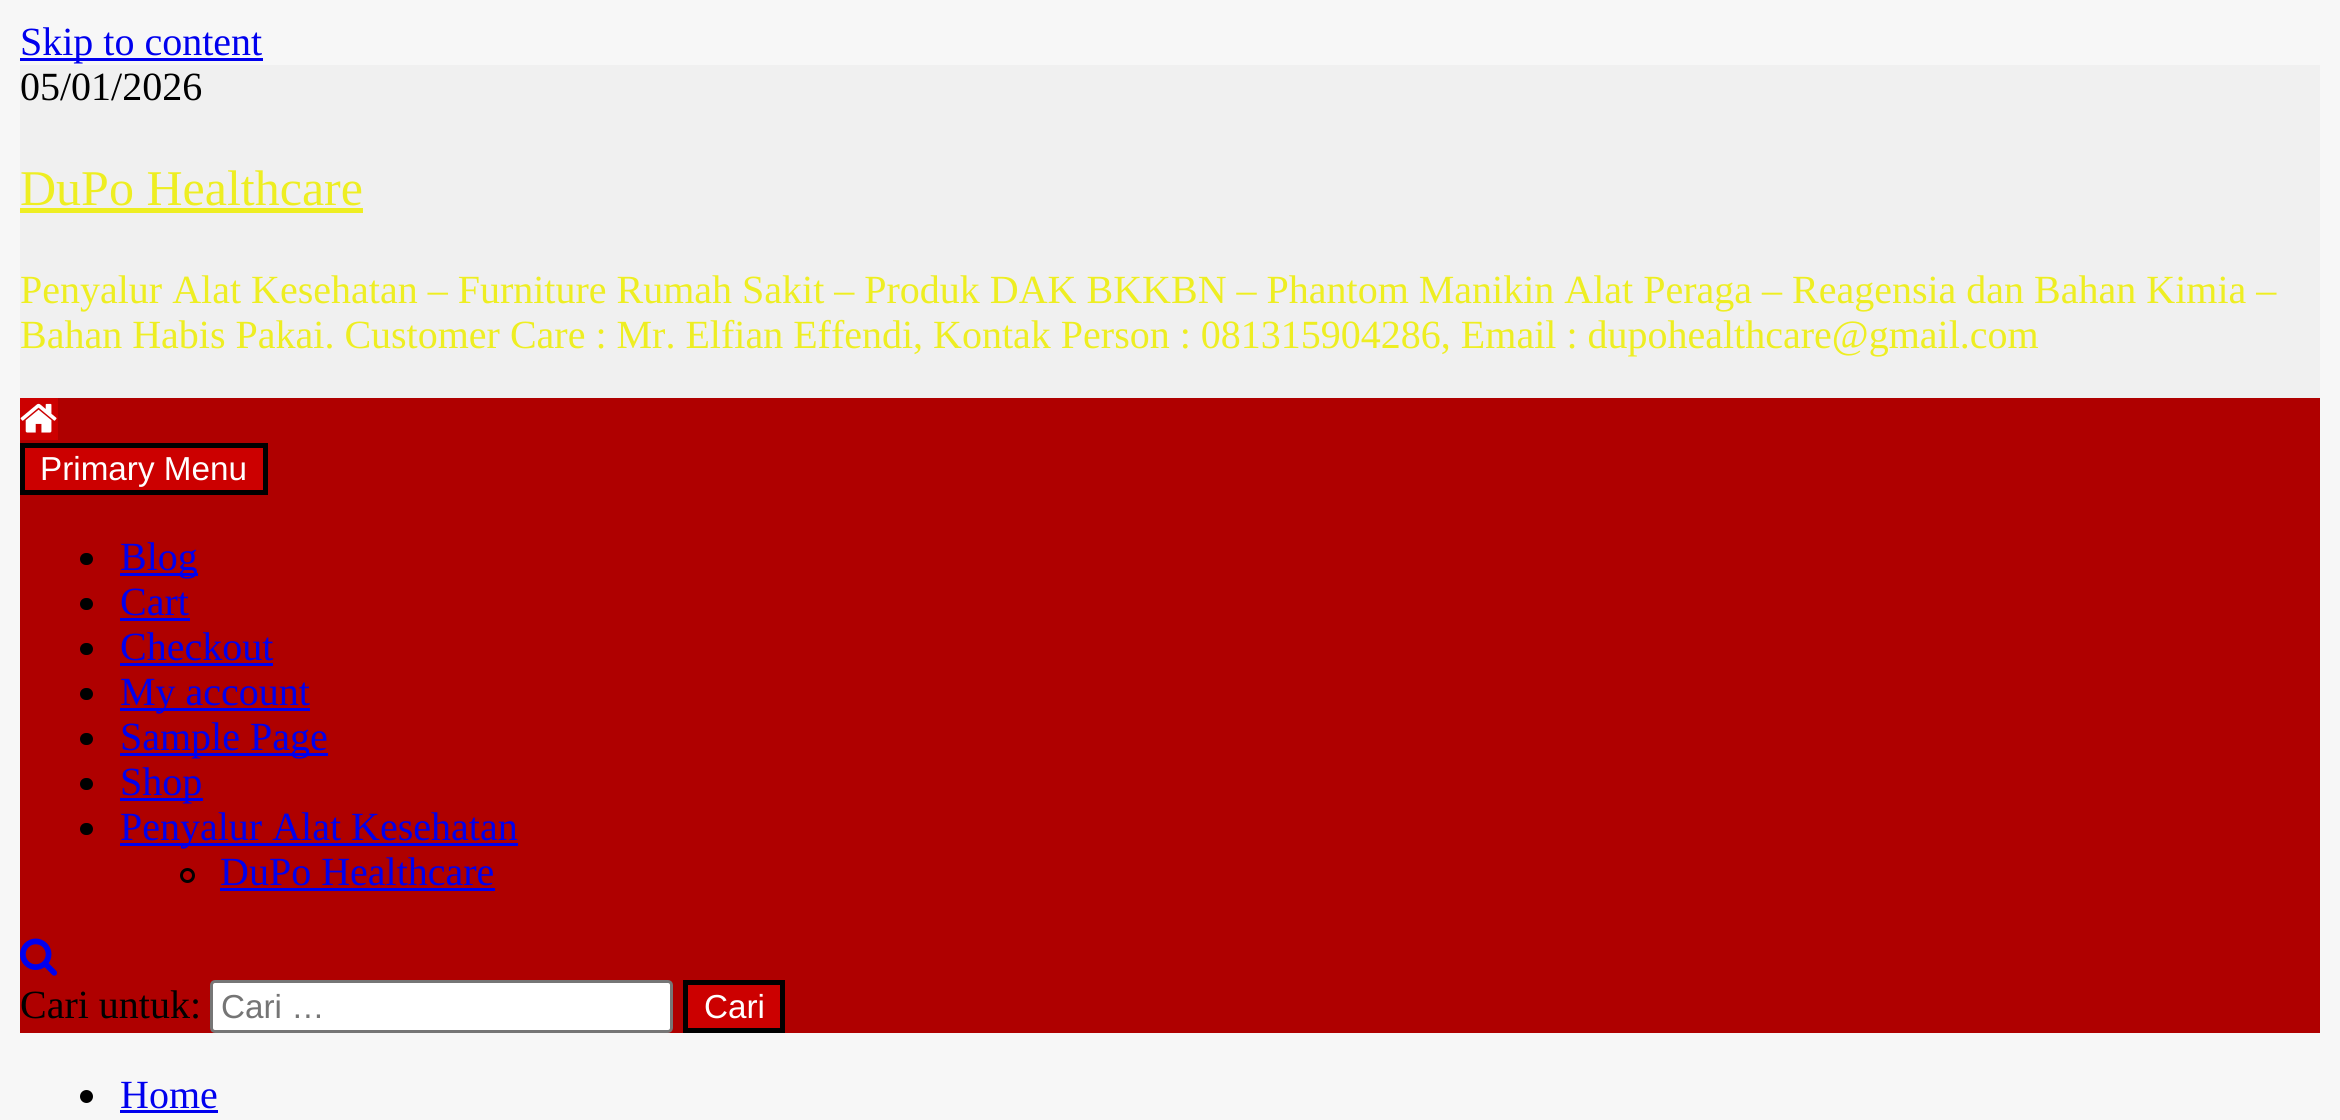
#include <cairo/cairo.h>
#include <math.h>
#include <stddef.h>


static void rounded_rect(cairo_t *cr, double x, double y, double w, double h, double r) {
  cairo_new_sub_path(cr);
  cairo_arc(cr, x + w - r, y + h - r, r, 0, M_PI / 2);
  cairo_arc(cr, x + r, y + h - r, r, M_PI / 2, M_PI);
  cairo_arc(cr, x + r, y + r, r, M_PI, 1.5 * M_PI);
  cairo_arc(cr, x + w - r, y + r, r, 1.5 * M_PI, 2 * M_PI);
  cairo_close_path(cr);
}

static void draw_image(cairo_t *cr, const char *path, double x, double y, double w, double h) {
  cairo_surface_t *image = cairo_image_surface_create_from_png(path);
  cairo_save(cr);
  cairo_set_source_surface(cr, image, x, y);
  cairo_rectangle(cr, x, y, w, h);
  cairo_fill(cr);
  cairo_restore(cr);
  cairo_surface_destroy(image);
}

static void draw(cairo_t *cr) {
  cairo_set_source_rgb(cr, 247 / 255.0, 247 / 255.0, 247 / 255.0);
  cairo_paint(cr);
  cairo_set_source_rgb(cr, 0, 0, 238 / 255.0);
  cairo_rectangle(cr, 20, 58, 243, 3);
  cairo_fill(cr);
  cairo_set_source_rgb(cr, 240 / 255.0, 240 / 255.0, 240 / 255.0);
  cairo_rectangle(cr, 20, 65, 2300, 333);
  cairo_fill(cr);
  cairo_set_source_rgb(cr, 238 / 255.0, 238 / 255.0, 34 / 255.0);
  cairo_rectangle(cr, 20, 208, 343, 5);
  cairo_fill(cr);
  cairo_set_source_rgb(cr, 175 / 255.0, 0, 0);
  cairo_rectangle(cr, 20, 398, 2300, 635);
  cairo_fill(cr);
  cairo_set_source_rgb(cr, 204 / 255.0, 0, 0);
  cairo_rectangle(cr, 20, 398, 38, 42);
  cairo_fill(cr);
  draw_image(cr, "images/1.png", 20, 403, 37, 30);
  cairo_rectangle(cr, 22.5, 445.5, 243, 47);
  cairo_fill_preserve(cr);
  cairo_set_source_rgb(cr, 0, 0, 0);
  cairo_set_line_width(cr, 5);
  cairo_stroke(cr);
  rounded_rect(cr, 80, 553, 13, 12, 6);
  cairo_fill(cr);
  cairo_set_source_rgb(cr, 0, 0, 238 / 255.0);
  cairo_rectangle(cr, 120, 573, 78, 3);
  cairo_fill(cr);
  cairo_set_source_rgb(cr, 0, 0, 0);
  rounded_rect(cr, 80, 598, 13, 12, 6);
  cairo_fill(cr);
  cairo_set_source_rgb(cr, 0, 0, 238 / 255.0);
  cairo_rectangle(cr, 120, 618, 70, 3);
  cairo_fill(cr);
  cairo_set_source_rgb(cr, 0, 0, 0);
  rounded_rect(cr, 80, 643, 13, 12, 6);
  cairo_fill(cr);
  cairo_set_source_rgb(cr, 0, 0, 238 / 255.0);
  cairo_rectangle(cr, 120, 663, 153, 3);
  cairo_fill(cr);
  cairo_set_source_rgb(cr, 0, 0, 0);
  rounded_rect(cr, 80, 688, 13, 12, 6);
  cairo_fill(cr);
  cairo_set_source_rgb(cr, 0, 0, 238 / 255.0);
  cairo_rectangle(cr, 120, 708, 190, 3);
  cairo_fill(cr);
  cairo_set_source_rgb(cr, 0, 0, 0);
  rounded_rect(cr, 80, 733, 13, 12, 6);
  cairo_fill(cr);
  cairo_set_source_rgb(cr, 0, 0, 238 / 255.0);
  cairo_rectangle(cr, 120, 753, 208, 3);
  cairo_fill(cr);
  cairo_set_source_rgb(cr, 0, 0, 0);
  rounded_rect(cr, 80, 778, 13, 12, 6);
  cairo_fill(cr);
  cairo_set_source_rgb(cr, 0, 0, 238 / 255.0);
  cairo_rectangle(cr, 120, 798, 83, 3);
  cairo_fill(cr);
  cairo_set_source_rgb(cr, 0, 0, 0);
  rounded_rect(cr, 80, 823, 13, 12, 6);
  cairo_fill(cr);
  cairo_set_source_rgb(cr, 0, 0, 238 / 255.0);
  cairo_rectangle(cr, 120, 843, 398, 3);
  cairo_fill(cr);
  cairo_arc(cr, 187.5, 875.5, 6, 0, 2 * M_PI);
  cairo_set_source_rgb(cr, 0, 0, 0);
  cairo_set_line_width(cr, 3);
  cairo_stroke(cr);
  cairo_set_source_rgb(cr, 0, 0, 238 / 255.0);
  cairo_rectangle(cr, 220, 888, 275, 3);
  cairo_fill(cr);
  draw_image(cr, "images/2.png", 20, 938, 38, 38);
  cairo_set_source_rgb(cr, 1, 1, 1);
  rounded_rect(cr, 211.5, 981.5, 460, 50, 3.5);
  cairo_fill_preserve(cr);
  cairo_set_source_rgb(cr, 118 / 255.0, 118 / 255.0, 118 / 255.0);
  cairo_stroke(cr);
  cairo_set_source_rgb(cr, 204 / 255.0, 0, 0);
  cairo_rectangle(cr, 685.5, 982.5, 97, 48);
  cairo_fill_preserve(cr);
  cairo_set_source_rgb(cr, 0, 0, 0);
  cairo_set_line_width(cr, 5);
  cairo_stroke(cr);
  cairo_arc(cr, 86.5, 1096.5, 6.5, 0, 2 * M_PI);
  cairo_fill(cr);
  cairo_set_source_rgb(cr, 0, 0, 238 / 255.0);
  cairo_rectangle(cr, 120, 1110, 98, 3);
  cairo_fill(cr);
  cairo_select_font_face(cr, "Liberation Serif", CAIRO_FONT_SLANT_NORMAL, CAIRO_FONT_WEIGHT_NORMAL);
  cairo_set_font_size(cr, 40);
  cairo_move_to(cr, 20, 55);
  cairo_show_text(cr, "Skip to content");
  cairo_set_source_rgb(cr, 0, 0, 0);
  cairo_move_to(cr, 20, 100);
  cairo_show_text(cr, "05/01/2026");
  cairo_set_font_size(cr, 50);
  cairo_set_source_rgb(cr, 238 / 255.0, 238 / 255.0, 34 / 255.0);
  cairo_move_to(cr, 20, 205);
  cairo_show_text(cr, "DuPo Healthcare");
  cairo_set_font_size(cr, 40);
  cairo_move_to(cr, 20, 303);
  cairo_show_text(cr, "Penyalur Alat Kesehatan – Furniture Rumah Sakit – Produk DAK BKKBN – Phantom Manikin Alat Peraga – Reagensia dan Bahan Kimia –");
  cairo_move_to(cr, 20, 348);
  cairo_show_text(cr, "Bahan Habis Pakai. Customer Care : Mr. Elfian Effendi, Kontak Person : 081315904286, Email : dupohealthcare@gmail.com");
  cairo_select_font_face(cr, "Liberation Sans", CAIRO_FONT_SLANT_NORMAL, CAIRO_FONT_WEIGHT_NORMAL);
  cairo_set_font_size(cr, 33.25);
  cairo_set_source_rgb(cr, 1, 1, 1);
  cairo_move_to(cr, 40, 480);
  cairo_show_text(cr, "Primary Menu");
  cairo_select_font_face(cr, "Liberation Serif", CAIRO_FONT_SLANT_NORMAL, CAIRO_FONT_WEIGHT_NORMAL);
  cairo_set_font_size(cr, 40);
  cairo_set_source_rgb(cr, 0, 0, 238 / 255.0);
  cairo_move_to(cr, 120, 570);
  cairo_show_text(cr, "Blog");
  cairo_move_to(cr, 120, 615);
  cairo_show_text(cr, "Cart");
  cairo_move_to(cr, 120, 660);
  cairo_show_text(cr, "Checkout");
  cairo_move_to(cr, 120, 705);
  cairo_show_text(cr, "My account");
  cairo_move_to(cr, 120, 750);
  cairo_show_text(cr, "Sample Page");
  cairo_move_to(cr, 120, 795);
  cairo_show_text(cr, "Shop");
  cairo_move_to(cr, 120, 840);
  cairo_show_text(cr, "Penyalur Alat Kesehatan");
  cairo_move_to(cr, 220, 885);
  cairo_show_text(cr, "DuPo Healthcare");
  cairo_set_source_rgb(cr, 0, 0, 0);
  cairo_move_to(cr, 20, 1018);
  cairo_show_text(cr, "Cari untuk:");
  cairo_select_font_face(cr, "Liberation Sans", CAIRO_FONT_SLANT_NORMAL, CAIRO_FONT_WEIGHT_NORMAL);
  cairo_set_font_size(cr, 33.25);
  cairo_set_source_rgb(cr, 117 / 255.0, 117 / 255.0, 117 / 255.0);
  cairo_move_to(cr, 221, 1018);
  cairo_show_text(cr, "Cari …");
  cairo_set_source_rgb(cr, 1, 1, 1);
  cairo_move_to(cr, 704, 1018);
  cairo_show_text(cr, "Cari");
  cairo_select_font_face(cr, "Liberation Serif", CAIRO_FONT_SLANT_NORMAL, CAIRO_FONT_WEIGHT_NORMAL);
  cairo_set_font_size(cr, 40);
  cairo_set_source_rgb(cr, 0, 0, 238 / 255.0);
  cairo_move_to(cr, 120, 1108);
  cairo_show_text(cr, "Home");
}

int main(void) {
  cairo_surface_t *surface = cairo_image_surface_create(CAIRO_FORMAT_RGB24, 2340, 1120);
  cairo_t *cr = cairo_create(surface);
  cairo_font_options_t *options = cairo_font_options_create();
  cairo_font_options_set_hint_metrics(options, CAIRO_HINT_METRICS_OFF);
  cairo_font_options_set_hint_style(options, CAIRO_HINT_STYLE_NONE);
  cairo_set_font_options(cr, options);
  cairo_set_miter_limit(cr, 4);
  draw(cr);
  cairo_surface_write_to_png(surface, "out.png");
  cairo_font_options_destroy(options);
  cairo_destroy(cr);
  cairo_surface_destroy(surface);
  return 0;
}
